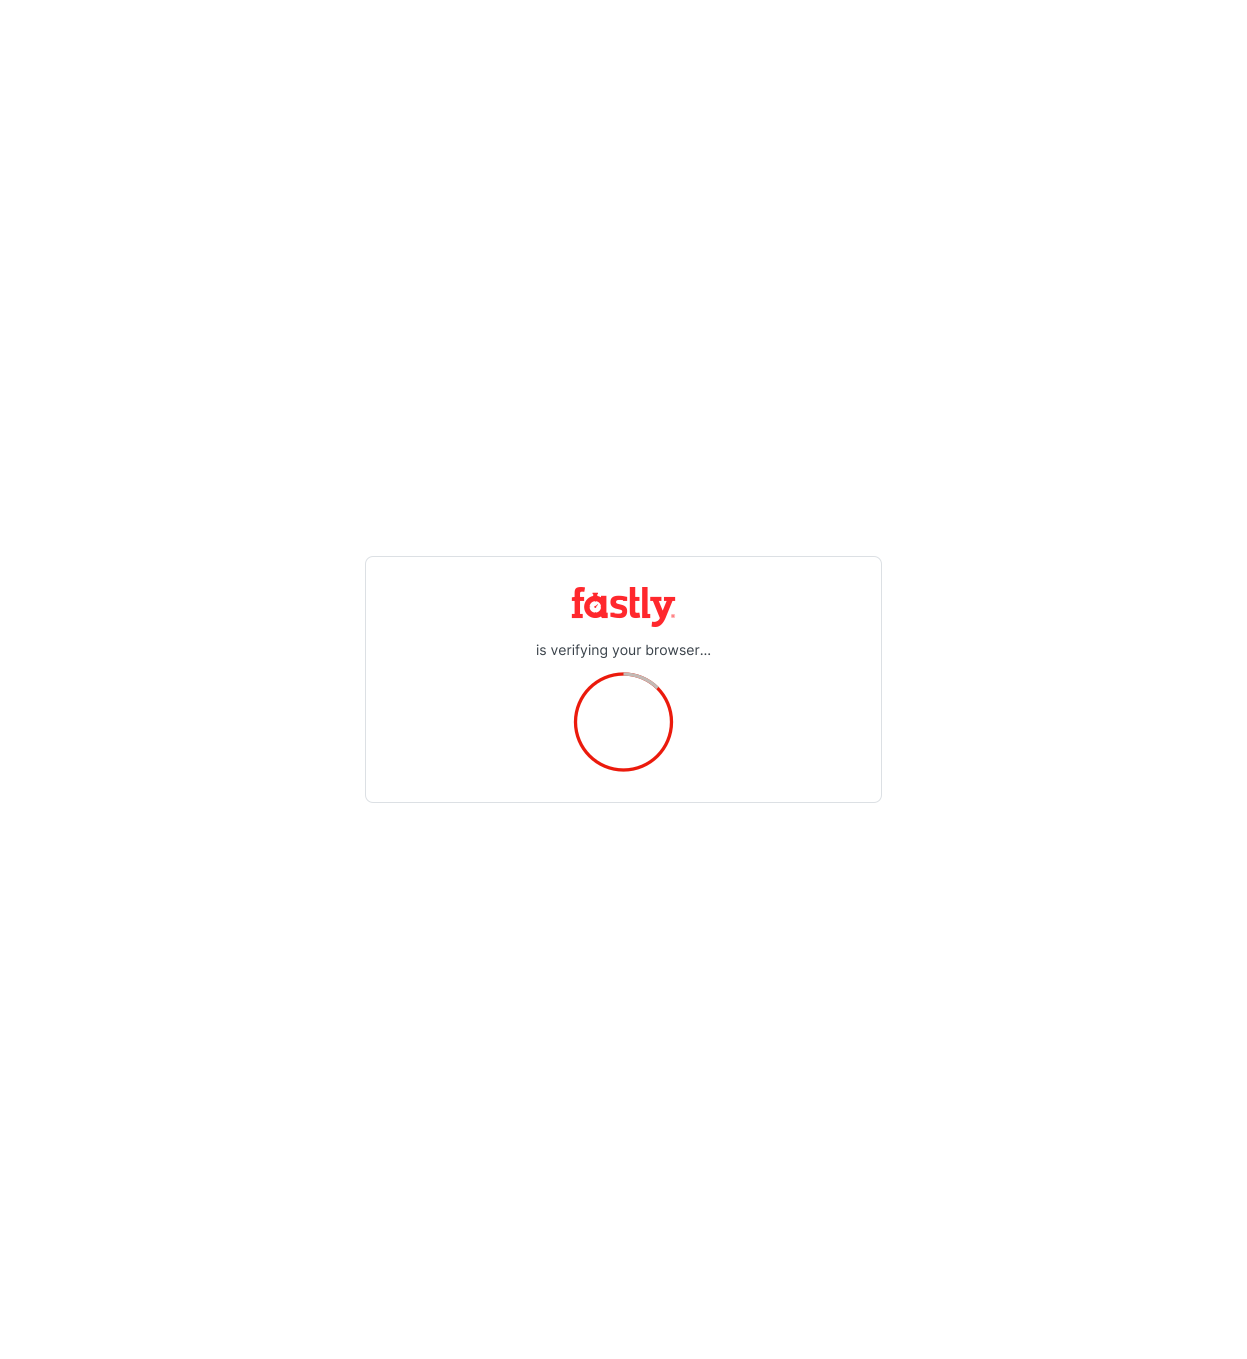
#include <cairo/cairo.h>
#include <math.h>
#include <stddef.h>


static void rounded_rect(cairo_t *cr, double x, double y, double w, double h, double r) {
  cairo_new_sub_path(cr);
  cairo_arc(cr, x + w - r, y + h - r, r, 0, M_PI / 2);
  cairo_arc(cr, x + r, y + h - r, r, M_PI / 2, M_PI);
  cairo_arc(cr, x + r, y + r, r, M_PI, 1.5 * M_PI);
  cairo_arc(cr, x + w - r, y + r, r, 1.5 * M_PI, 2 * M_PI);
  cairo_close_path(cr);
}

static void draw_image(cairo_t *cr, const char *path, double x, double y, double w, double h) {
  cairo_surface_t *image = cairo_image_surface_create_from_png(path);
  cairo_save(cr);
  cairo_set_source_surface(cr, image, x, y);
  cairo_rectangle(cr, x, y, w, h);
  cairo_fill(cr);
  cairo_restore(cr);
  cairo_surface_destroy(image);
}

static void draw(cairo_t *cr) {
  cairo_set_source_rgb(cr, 1, 1, 1);
  cairo_paint(cr);
  rounded_rect(cr, 365.5, 556.5, 516, 246, 7.5);
  cairo_set_source_rgb(cr, 220 / 255.0, 224 / 255.0, 228 / 255.0);
  cairo_set_line_width(cr, 1);
  cairo_stroke(cr);
  draw_image(cr, "images/1.png", 571, 587, 105, 40);
  cairo_new_path(cr);
  cairo_move_to(cr, 575.5, 722);
  cairo_curve_to(cr, 575.5, 695.5, 597, 674, 623.5, 674);
  cairo_curve_to(cr, 650, 674, 671.5, 695.5, 671.5, 722);
  cairo_curve_to(cr, 671.5, 748.5, 650, 770, 623.5, 770);
  cairo_curve_to(cr, 597, 770, 575.5, 748.5, 575.5, 722);
  cairo_close_path(cr);
  cairo_set_source_rgb(cr, 235 / 255.0, 26 / 255.0, 12 / 255.0);
  cairo_set_line_width(cr, 3.3);
  cairo_stroke(cr);
  cairo_new_path(cr);
  cairo_move_to(cr, 657.5, 688);
  cairo_curve_to(cr, 648.5, 679, 636, 674, 623.5, 674);
  cairo_set_source_rgb(cr, 194 / 255.0, 186 / 255.0, 181 / 255.0);
  cairo_stroke(cr);
  cairo_select_font_face(cr, "Inter", CAIRO_FONT_SLANT_NORMAL, CAIRO_FONT_WEIGHT_NORMAL);
  cairo_set_font_size(cr, 14);
  cairo_set_source_rgb(cr, 58 / 255.0, 66 / 255.0, 74 / 255.0);
  cairo_move_to(cr, 536, 655);
  cairo_show_text(cr, "is verifying your browser...");
}

int main(void) {
  cairo_surface_t *surface = cairo_image_surface_create(CAIRO_FORMAT_RGB24, 1247, 1359);
  cairo_t *cr = cairo_create(surface);
  cairo_font_options_t *options = cairo_font_options_create();
  cairo_font_options_set_hint_metrics(options, CAIRO_HINT_METRICS_OFF);
  cairo_font_options_set_hint_style(options, CAIRO_HINT_STYLE_NONE);
  cairo_set_font_options(cr, options);
  cairo_set_miter_limit(cr, 4);
  draw(cr);
  cairo_surface_write_to_png(surface, "out.png");
  cairo_font_options_destroy(options);
  cairo_destroy(cr);
  cairo_surface_destroy(surface);
  return 0;
}
